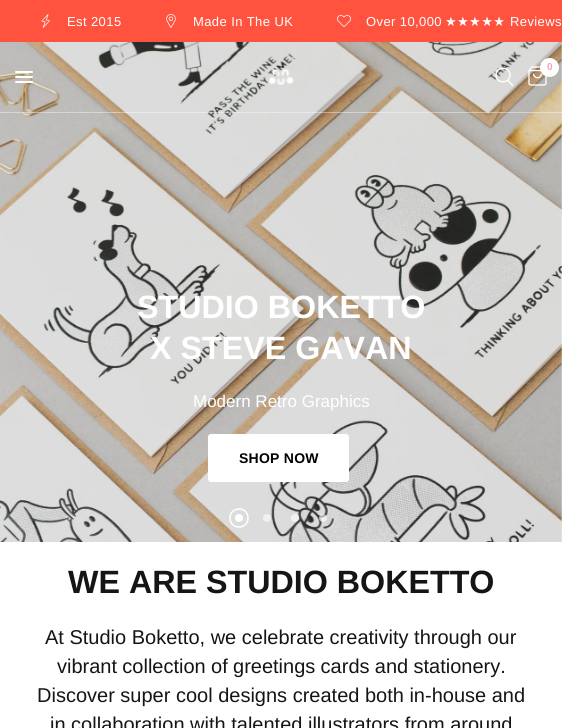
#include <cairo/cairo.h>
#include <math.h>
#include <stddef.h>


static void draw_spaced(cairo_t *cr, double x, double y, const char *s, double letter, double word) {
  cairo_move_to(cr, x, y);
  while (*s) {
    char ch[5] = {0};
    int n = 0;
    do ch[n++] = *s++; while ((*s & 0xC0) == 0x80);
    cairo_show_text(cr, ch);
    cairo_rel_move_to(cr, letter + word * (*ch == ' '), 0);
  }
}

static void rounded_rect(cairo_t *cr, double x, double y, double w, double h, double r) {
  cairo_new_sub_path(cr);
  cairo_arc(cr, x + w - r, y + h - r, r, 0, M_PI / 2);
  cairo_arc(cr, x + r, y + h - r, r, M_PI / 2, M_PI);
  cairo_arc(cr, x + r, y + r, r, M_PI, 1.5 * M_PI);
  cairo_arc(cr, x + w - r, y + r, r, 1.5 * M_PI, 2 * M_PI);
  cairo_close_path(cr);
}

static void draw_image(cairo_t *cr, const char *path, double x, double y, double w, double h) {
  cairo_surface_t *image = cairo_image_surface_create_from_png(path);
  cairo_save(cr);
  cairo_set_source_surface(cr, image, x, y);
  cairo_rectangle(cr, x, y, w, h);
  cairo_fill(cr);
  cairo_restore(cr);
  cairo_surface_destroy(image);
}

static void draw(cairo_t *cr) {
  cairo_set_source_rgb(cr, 1, 1, 1);
  cairo_paint(cr);
  cairo_set_source_rgb(cr, 1, 83 / 255.0, 64 / 255.0);
  cairo_rectangle(cr, 0, 0, 562, 42);
  cairo_fill(cr);
  draw_image(cr, "images/1.png", 41, 14, 9, 14);
  draw_image(cr, "images/2.png", 166, 14, 10, 14);
  draw_image(cr, "images/3.png", 337, 15, 14, 12);
  draw_image(cr, "images/6.png", 0, 42, 562, 500);
  cairo_set_source_rgba(cr, 1, 1, 1, 0.4);
  cairo_rectangle(cr, 0, 112, 562, 1);
  cairo_fill(cr);
  cairo_new_path(cr);
  cairo_move_to(cr, 508, 80.5);
  cairo_line_to(cr, 512.5, 85.5);
  cairo_move_to(cr, 510, 75);
  cairo_curve_to(cr, 510, 84, 496, 84, 496, 75);
  cairo_curve_to(cr, 496, 66, 510, 66, 510, 75);
  cairo_close_path(cr);
  cairo_set_source_rgb(cr, 1, 1, 1);
  cairo_set_line_width(cr, 1.4);
  cairo_set_line_cap(cr, CAIRO_LINE_CAP_ROUND);
  cairo_set_line_join(cr, CAIRO_LINE_JOIN_ROUND);
  cairo_stroke(cr);
  draw_image(cr, "images/4.png", 528, 66, 19, 20);
  cairo_arc(cr, 549.5, 67.5, 9.5, 0, 2 * M_PI);
  cairo_fill(cr);
  rounded_rect(cr, 15, 71, 18, 2, 1);
  cairo_fill(cr);
  rounded_rect(cr, 15, 76, 18, 2, 1);
  cairo_fill(cr);
  rounded_rect(cr, 15, 81, 18, 2, 1);
  cairo_fill(cr);
  draw_image(cr, "images/5.png", 269, 69, 25, 16);
  rounded_rect(cr, 208.5, 434.5, 140, 47, 2.5);
  cairo_fill_preserve(cr);
  cairo_set_line_width(cr, 1);
  cairo_set_line_cap(cr, CAIRO_LINE_CAP_BUTT);
  cairo_set_line_join(cr, CAIRO_LINE_JOIN_MITER);
  cairo_stroke(cr);
  cairo_arc(cr, 239, 518, 4, 0, 2 * M_PI);
  cairo_fill(cr);
  cairo_new_path(cr);
  cairo_move_to(cr, 230, 518);
  cairo_curve_to(cr, 230, 506, 248, 506, 248, 518);
  cairo_curve_to(cr, 248, 530, 230, 530, 230, 518);
  cairo_set_line_width(cr, 1.5);
  cairo_set_line_cap(cr, CAIRO_LINE_CAP_ROUND);
  cairo_set_line_join(cr, CAIRO_LINE_JOIN_ROUND);
  cairo_stroke(cr);
  cairo_set_source_rgba(cr, 1, 1, 1, 0.6);
  cairo_arc(cr, 267, 518, 4, 0, 2 * M_PI);
  cairo_fill(cr);
  cairo_arc(cr, 295, 518, 4, 0, 2 * M_PI);
  cairo_fill(cr);
  cairo_arc(cr, 323, 518, 4, 0, 2 * M_PI);
  cairo_fill(cr);
  cairo_select_font_face(cr, "Liberation Sans", CAIRO_FONT_SLANT_NORMAL, CAIRO_FONT_WEIGHT_NORMAL);
  cairo_set_font_size(cr, 13);
  cairo_set_source_rgb(cr, 1, 1, 1);
  draw_spaced(cr, 67, 26, "Est 2015", 0.4, 0);
  draw_spaced(cr, 193, 26, "Made In The UK", 0.4, 0);
  draw_spaced(cr, 366, 26, "Over 10,000", 0.4, 0);
  cairo_select_font_face(cr, "DejaVu Sans", CAIRO_FONT_SLANT_NORMAL, CAIRO_FONT_WEIGHT_NORMAL);
  draw_spaced(cr, 445, 26, "★★★★★", 0.4, 0);
  cairo_select_font_face(cr, "Liberation Sans", CAIRO_FONT_SLANT_NORMAL, CAIRO_FONT_WEIGHT_NORMAL);
  draw_spaced(cr, 510, 26, "Reviews", 0.4, 0);
  cairo_select_font_face(cr, "Liberation Sans", CAIRO_FONT_SLANT_NORMAL, CAIRO_FONT_WEIGHT_BOLD);
  cairo_set_font_size(cr, 10);
  cairo_set_source_rgb(cr, 243 / 255.0, 161 / 255.0, 192 / 255.0);
  cairo_move_to(cr, 547, 70);
  cairo_show_text(cr, "0");
  cairo_set_font_size(cr, 32.25);
  cairo_set_source_rgb(cr, 1, 1, 1);
  cairo_move_to(cr, 137, 318);
  cairo_show_text(cr, "STUDIO BOKETTO");
  cairo_move_to(cr, 150, 359);
  cairo_show_text(cr, "X STEVE GAVAN");
  cairo_select_font_face(cr, "Liberation Sans", CAIRO_FONT_SLANT_NORMAL, CAIRO_FONT_WEIGHT_NORMAL);
  cairo_set_font_size(cr, 17);
  cairo_move_to(cr, 193, 407);
  cairo_show_text(cr, "Modern Retro Graphics");
  cairo_select_font_face(cr, "Liberation Sans", CAIRO_FONT_SLANT_NORMAL, CAIRO_FONT_WEIGHT_BOLD);
  cairo_set_font_size(cr, 14);
  cairo_set_source_rgb(cr, 0, 0, 0);
  draw_spaced(cr, 239, 463, "SHOP NOW", 0.25, 0);
  cairo_set_font_size(cr, 32.25);
  cairo_set_source_rgb(cr, 21 / 255.0, 21 / 255.0, 21 / 255.0);
  cairo_move_to(cr, 68, 593);
  cairo_show_text(cr, "WE ARE STUDIO BOKETTO");
  cairo_select_font_face(cr, "Liberation Sans", CAIRO_FONT_SLANT_NORMAL, CAIRO_FONT_WEIGHT_NORMAL);
  cairo_set_font_size(cr, 20);
  cairo_move_to(cr, 45, 644);
  cairo_show_text(cr, "At Studio Boketto, we celebrate creativity through our");
  draw_spaced(cr, 57, 673, "vibrant collection of greetings cards and stationery.", 0, -0.25);
  cairo_move_to(cr, 37, 702);
  cairo_show_text(cr, "Discover super cool designs created both in-house and");
  cairo_move_to(cr, 50, 731);
  cairo_show_text(cr, "in collaboration with talented illustrators from around");
}

int main(void) {
  cairo_surface_t *surface = cairo_image_surface_create(CAIRO_FORMAT_RGB24, 562, 728);
  cairo_t *cr = cairo_create(surface);
  cairo_font_options_t *options = cairo_font_options_create();
  cairo_font_options_set_hint_metrics(options, CAIRO_HINT_METRICS_OFF);
  cairo_font_options_set_hint_style(options, CAIRO_HINT_STYLE_NONE);
  cairo_set_font_options(cr, options);
  cairo_set_miter_limit(cr, 4);
  draw(cr);
  cairo_surface_write_to_png(surface, "out.png");
  cairo_font_options_destroy(options);
  cairo_destroy(cr);
  cairo_surface_destroy(surface);
  return 0;
}
